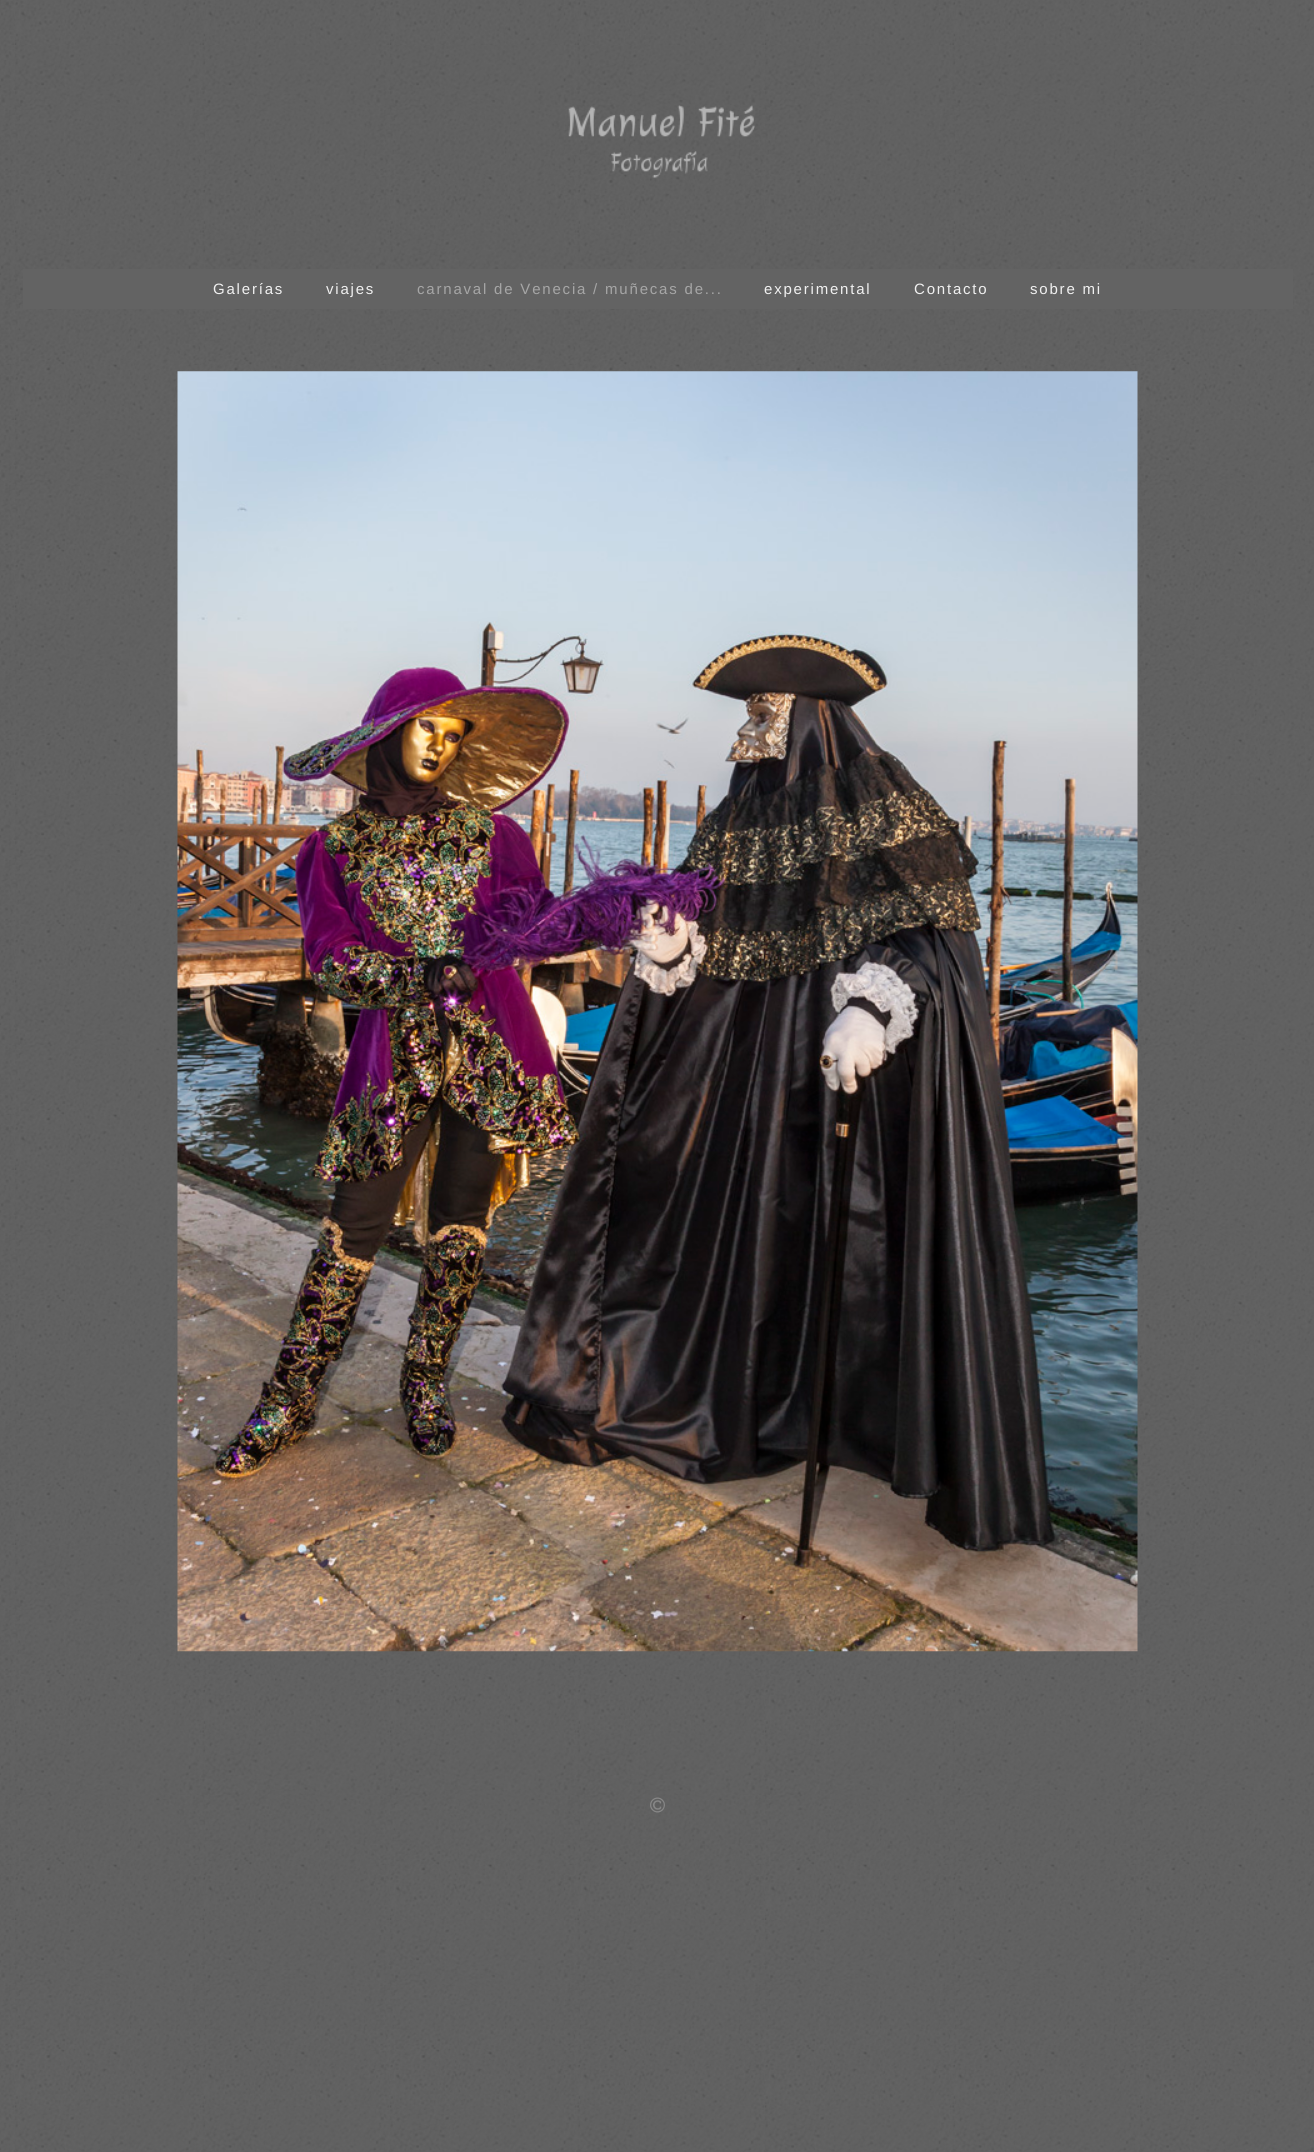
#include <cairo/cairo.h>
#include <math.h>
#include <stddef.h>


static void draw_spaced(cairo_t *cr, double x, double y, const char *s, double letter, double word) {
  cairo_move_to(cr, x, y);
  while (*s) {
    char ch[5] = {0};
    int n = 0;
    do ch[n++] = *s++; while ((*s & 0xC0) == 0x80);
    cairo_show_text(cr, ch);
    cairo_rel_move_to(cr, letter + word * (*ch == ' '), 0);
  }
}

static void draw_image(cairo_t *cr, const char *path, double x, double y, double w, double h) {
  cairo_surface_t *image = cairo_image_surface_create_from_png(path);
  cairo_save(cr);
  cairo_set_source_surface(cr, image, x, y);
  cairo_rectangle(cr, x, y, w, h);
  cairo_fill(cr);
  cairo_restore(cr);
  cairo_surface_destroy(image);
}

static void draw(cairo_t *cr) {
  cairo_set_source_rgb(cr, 99 / 255.0, 99 / 255.0, 99 / 255.0);
  cairo_paint(cr);
  draw_image(cr, "images/1.png", 0, 0, 1314, 2152);
  draw_image(cr, "images/2.png", 568, 105, 187, 73);
  cairo_set_source_rgb(cr, 99 / 255.0, 99 / 255.0, 99 / 255.0);
  cairo_rectangle(cr, 23, 269, 1270, 40);
  cairo_fill(cr);
  draw_image(cr, "images/3.png", 177, 371, 961, 1281);
  draw_image(cr, "images/4.png", 650, 1797, 15, 16);
  cairo_select_font_face(cr, "Liberation Sans", CAIRO_FONT_SLANT_NORMAL, CAIRO_FONT_WEIGHT_NORMAL);
  cairo_set_font_size(cr, 15);
  cairo_set_source_rgb(cr, 240 / 255.0, 240 / 255.0, 240 / 255.0);
  draw_spaced(cr, 213, 294, "Galerías", 1.8, 0);
  draw_spaced(cr, 326, 294, "viajes", 1.8, 0);
  cairo_set_source_rgb(cr, 166 / 255.0, 166 / 255.0, 166 / 255.0);
  draw_spaced(cr, 417, 294, "carnaval de Venecia / muñecas de...", 1.8, 0);
  cairo_set_source_rgb(cr, 240 / 255.0, 240 / 255.0, 240 / 255.0);
  draw_spaced(cr, 764, 294, "experimental", 1.8, 0);
  draw_spaced(cr, 914, 294, "Contacto", 1.8, 0);
  draw_spaced(cr, 1030, 294, "sobre mi", 1.8, 0);
}

int main(void) {
  cairo_surface_t *surface = cairo_image_surface_create(CAIRO_FORMAT_RGB24, 1314, 2152);
  cairo_t *cr = cairo_create(surface);
  cairo_font_options_t *options = cairo_font_options_create();
  cairo_font_options_set_hint_metrics(options, CAIRO_HINT_METRICS_OFF);
  cairo_font_options_set_hint_style(options, CAIRO_HINT_STYLE_NONE);
  cairo_set_font_options(cr, options);
  cairo_set_miter_limit(cr, 4);
  draw(cr);
  cairo_surface_write_to_png(surface, "out.png");
  cairo_font_options_destroy(options);
  cairo_destroy(cr);
  cairo_surface_destroy(surface);
  return 0;
}
